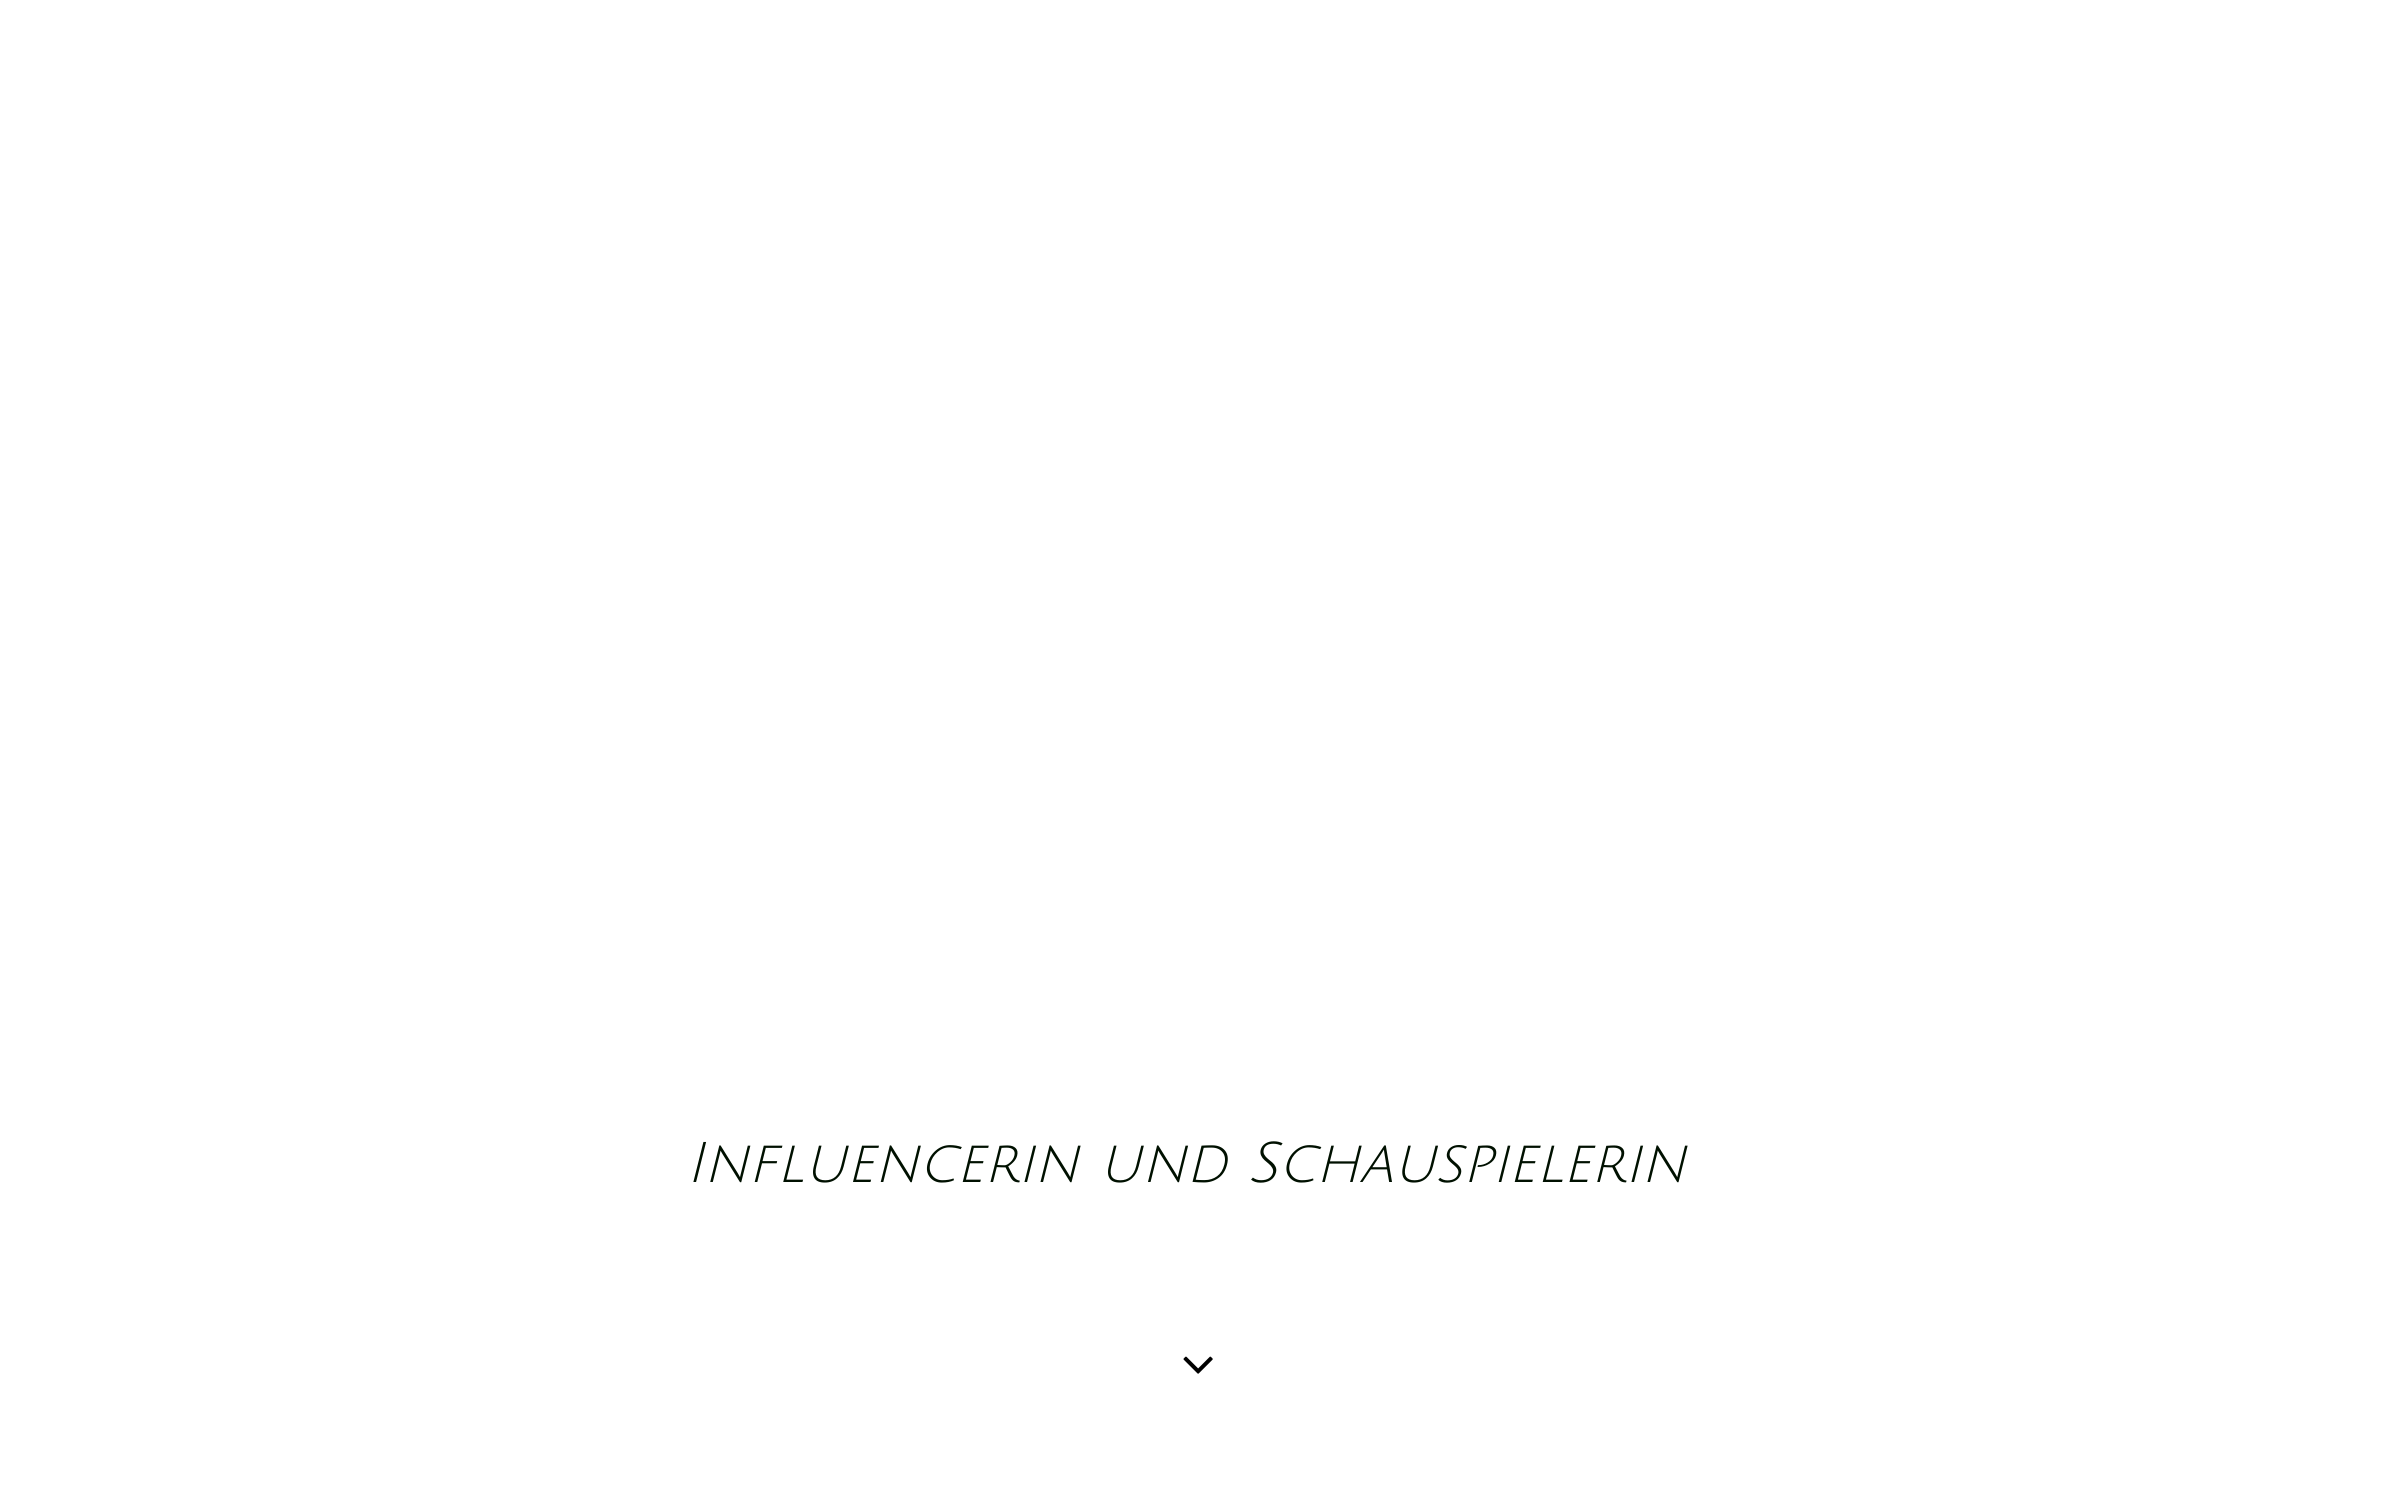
#include <cairo/cairo.h>
#include <math.h>
#include <stddef.h>


static void draw_image(cairo_t *cr, const char *path, double x, double y, double w, double h) {
  cairo_surface_t *image = cairo_image_surface_create_from_png(path);
  cairo_save(cr);
  cairo_set_source_surface(cr, image, x, y);
  cairo_rectangle(cr, x, y, w, h);
  cairo_fill(cr);
  cairo_restore(cr);
  cairo_surface_destroy(image);
}

static void draw(cairo_t *cr) {
  cairo_set_source_rgb(cr, 1, 1, 1);
  cairo_paint(cr);
  draw_image(cr, "images/1.png", 1183, 1356, 30, 18);
  cairo_select_font_face(cr, "Julius Sans One", CAIRO_FONT_SLANT_ITALIC, CAIRO_FONT_WEIGHT_NORMAL);
  cairo_set_font_size(cr, 56);
  cairo_set_source_rgb(cr, 0, 16 / 255.0, 0);
  cairo_move_to(cr, 686, 1182);
  cairo_show_text(cr, "Influencerin und Schauspielerin");
}

int main(void) {
  cairo_surface_t *surface = cairo_image_surface_create(CAIRO_FORMAT_RGB24, 2392, 1492);
  cairo_t *cr = cairo_create(surface);
  cairo_font_options_t *options = cairo_font_options_create();
  cairo_font_options_set_hint_metrics(options, CAIRO_HINT_METRICS_OFF);
  cairo_font_options_set_hint_style(options, CAIRO_HINT_STYLE_NONE);
  cairo_set_font_options(cr, options);
  cairo_set_miter_limit(cr, 4);
  draw(cr);
  cairo_surface_write_to_png(surface, "out.png");
  cairo_font_options_destroy(options);
  cairo_destroy(cr);
  cairo_surface_destroy(surface);
  return 0;
}
